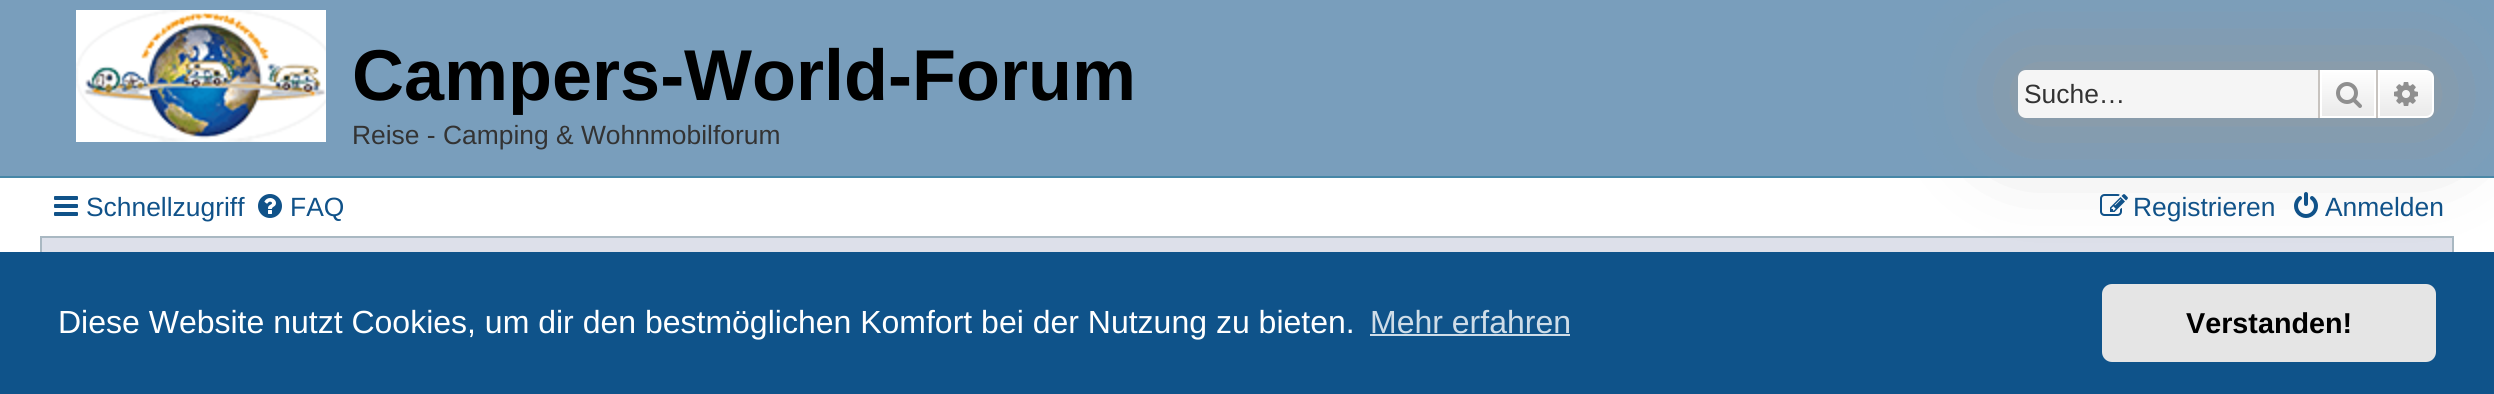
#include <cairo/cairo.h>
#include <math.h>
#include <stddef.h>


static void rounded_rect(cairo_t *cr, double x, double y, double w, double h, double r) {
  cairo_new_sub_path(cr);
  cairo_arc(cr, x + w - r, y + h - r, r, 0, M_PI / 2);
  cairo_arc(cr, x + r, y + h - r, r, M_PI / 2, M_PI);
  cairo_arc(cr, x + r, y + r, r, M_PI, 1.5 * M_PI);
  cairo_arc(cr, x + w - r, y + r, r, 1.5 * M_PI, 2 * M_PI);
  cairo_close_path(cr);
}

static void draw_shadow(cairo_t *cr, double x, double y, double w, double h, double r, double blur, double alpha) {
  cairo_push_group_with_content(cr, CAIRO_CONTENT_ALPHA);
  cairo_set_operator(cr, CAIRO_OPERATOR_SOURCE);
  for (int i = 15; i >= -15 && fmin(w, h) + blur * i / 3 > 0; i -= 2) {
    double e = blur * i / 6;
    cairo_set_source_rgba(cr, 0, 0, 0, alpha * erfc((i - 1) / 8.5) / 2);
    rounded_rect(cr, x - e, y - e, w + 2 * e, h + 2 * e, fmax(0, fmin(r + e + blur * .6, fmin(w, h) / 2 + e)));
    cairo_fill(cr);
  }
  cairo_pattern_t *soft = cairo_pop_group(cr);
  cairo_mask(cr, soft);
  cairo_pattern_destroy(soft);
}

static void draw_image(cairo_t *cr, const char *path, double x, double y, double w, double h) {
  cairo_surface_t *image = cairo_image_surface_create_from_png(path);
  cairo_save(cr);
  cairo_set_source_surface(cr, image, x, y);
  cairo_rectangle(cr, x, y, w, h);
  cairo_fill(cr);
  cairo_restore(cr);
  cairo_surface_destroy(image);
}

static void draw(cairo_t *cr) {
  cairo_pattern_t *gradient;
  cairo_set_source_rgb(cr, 121 / 255.0, 158 / 255.0, 188 / 255.0);
  cairo_paint(cr);
  cairo_set_source_rgb(cr, 71 / 255.0, 135 / 255.0, 167 / 255.0);
  cairo_rectangle(cr, 0, 176, 2494, 2);
  cairo_fill(cr);
  draw_image(cr, "images/1.png", 76, 10, 250, 132);
  cairo_set_source_rgb(cr, 1, 1, 1);
  cairo_rectangle(cr, 0, 178, 2494, 74);
  cairo_fill(cr);
  cairo_set_source_rgb(cr, 221 / 255.0, 224 / 255.0, 234 / 255.0);
  cairo_rectangle(cr, 42, 238, 2410, 14);
  cairo_fill(cr);
  cairo_rectangle(cr, 41, 237, 2412, 68);
  cairo_set_source_rgb(cr, 169 / 255.0, 184 / 255.0, 194 / 255.0);
  cairo_stroke(cr);
  cairo_set_source_rgb(cr, 153 / 255.0, 153 / 255.0, 153 / 255.0);
  draw_shadow(cr, 2018, 70, 416, 48, 8, 50, 1);
  cairo_set_source_rgb(cr, 245 / 255.0, 245 / 255.0, 245 / 255.0);
  cairo_new_path(cr);
  cairo_move_to(cr, 2026, 70);
  cairo_line_to(cr, 2318, 70);
  cairo_line_to(cr, 2318, 118);
  cairo_line_to(cr, 2026, 118);
  cairo_curve_to(cr, 2021.5, 118, 2018, 114.5, 2018, 110);
  cairo_line_to(cr, 2018, 78);
  cairo_curve_to(cr, 2018, 73.5, 2021.5, 70, 2026, 70);
  cairo_close_path(cr);
  cairo_fill(cr);
  gradient = cairo_pattern_create_linear(2348, 70, 2348, 118);
  cairo_pattern_add_color_stop_rgba(gradient, 0, 1, 1, 1, 1);
  cairo_pattern_add_color_stop_rgba(gradient, 1, 233 / 255.0, 233 / 255.0, 233 / 255.0, 1);
  cairo_set_source(cr, gradient);
  cairo_pattern_destroy(gradient);
  cairo_rectangle(cr, 2322, 72, 52, 44);
  cairo_fill(cr);
  cairo_rectangle(cr, 2321, 71, 54, 46);
  cairo_set_source_rgb(cr, 1, 1, 1);
  cairo_stroke(cr);
  cairo_set_source_rgb(cr, 199 / 255.0, 195 / 255.0, 191 / 255.0);
  cairo_rectangle(cr, 2376, 70, 2, 48);
  cairo_fill(cr);
  cairo_rectangle(cr, 2318, 70, 2, 48);
  cairo_fill(cr);
  draw_image(cr, "images/2.png", 2336, 82, 26, 26);
  gradient = cairo_pattern_create_linear(2406, 70, 2406, 118);
  cairo_pattern_add_color_stop_rgba(gradient, 0, 1, 1, 1, 1);
  cairo_pattern_add_color_stop_rgba(gradient, 1, 233 / 255.0, 233 / 255.0, 233 / 255.0, 1);
  cairo_set_source(cr, gradient);
  cairo_pattern_destroy(gradient);
  cairo_new_path(cr);
  cairo_move_to(cr, 2379, 71);
  cairo_line_to(cr, 2426, 71);
  cairo_curve_to(cr, 2430, 71, 2433, 74, 2433, 78);
  cairo_line_to(cr, 2433, 110);
  cairo_curve_to(cr, 2433, 114, 2430, 117, 2426, 117);
  cairo_line_to(cr, 2379, 117);
  cairo_close_path(cr);
  cairo_fill_preserve(cr);
  cairo_set_source_rgb(cr, 1, 1, 1);
  cairo_stroke(cr);
  draw_image(cr, "images/3.png", 2394, 82, 24, 24);
  draw_image(cr, "images/4.png", 54, 196, 24, 20);
  draw_image(cr, "images/5.png", 258, 194, 24, 24);
  draw_image(cr, "images/6.png", 2100, 194, 28, 22);
  draw_image(cr, "images/7.png", 2294, 192, 24, 26);
  cairo_set_source_rgb(cr, 15 / 255.0, 83 / 255.0, 138 / 255.0);
  cairo_rectangle(cr, 0, 252, 2494, 142);
  cairo_fill(cr);
  cairo_set_source_rgb(cr, 207 / 255.0, 221 / 255.0, 232 / 255.0);
  cairo_rectangle(cr, 1370, 334, 200, 2);
  cairo_fill(cr);
  cairo_set_source_rgb(cr, 229 / 255.0, 229 / 255.0, 229 / 255.0);
  rounded_rect(cr, 2102, 284, 334, 78, 10);
  cairo_fill(cr);
  cairo_select_font_face(cr, "Liberation Sans", CAIRO_FONT_SLANT_NORMAL, CAIRO_FONT_WEIGHT_BOLD);
  cairo_set_font_size(cr, 72);
  cairo_set_source_rgb(cr, 0, 0, 0);
  cairo_move_to(cr, 352, 100);
  cairo_show_text(cr, "Campers-World-Forum");
  cairo_select_font_face(cr, "Liberation Sans", CAIRO_FONT_SLANT_NORMAL, CAIRO_FONT_WEIGHT_NORMAL);
  cairo_set_font_size(cr, 26.4);
  cairo_set_source_rgb(cr, 51 / 255.0, 51 / 255.0, 51 / 255.0);
  cairo_move_to(cr, 352, 144);
  cairo_show_text(cr, "Reise - Camping & Wohnmobilforum");
  cairo_move_to(cr, 2024, 103);
  cairo_show_text(cr, "Suche…");
  cairo_set_source_rgb(cr, 16 / 255.0, 82 / 255.0, 137 / 255.0);
  cairo_move_to(cr, 86, 216);
  cairo_show_text(cr, "Schnellzugriff");
  cairo_move_to(cr, 290, 216);
  cairo_show_text(cr, "FAQ");
  cairo_move_to(cr, 2133, 216);
  cairo_show_text(cr, "Registrieren");
  cairo_move_to(cr, 2325, 216);
  cairo_show_text(cr, "Anmelden");
  cairo_set_font_size(cr, 32);
  cairo_set_source_rgb(cr, 1, 1, 1);
  cairo_move_to(cr, 58, 333);
  cairo_show_text(cr, "Diese Website nutzt Cookies, um dir den bestmöglichen Komfort bei der Nutzung zu bieten.");
  cairo_set_source_rgb(cr, 207 / 255.0, 221 / 255.0, 232 / 255.0);
  cairo_move_to(cr, 1370, 333);
  cairo_show_text(cr, "Mehr erfahren");
  cairo_select_font_face(cr, "Liberation Sans", CAIRO_FONT_SLANT_NORMAL, CAIRO_FONT_WEIGHT_BOLD);
  cairo_set_font_size(cr, 28.75);
  cairo_set_source_rgb(cr, 0, 0, 0);
  cairo_move_to(cr, 2186, 333);
  cairo_show_text(cr, "Verstanden!");
}

int main(void) {
  cairo_surface_t *surface = cairo_image_surface_create(CAIRO_FORMAT_RGB24, 2494, 394);
  cairo_t *cr = cairo_create(surface);
  cairo_font_options_t *options = cairo_font_options_create();
  cairo_font_options_set_hint_metrics(options, CAIRO_HINT_METRICS_OFF);
  cairo_font_options_set_hint_style(options, CAIRO_HINT_STYLE_NONE);
  cairo_set_font_options(cr, options);
  cairo_set_miter_limit(cr, 4);
  draw(cr);
  cairo_surface_write_to_png(surface, "out.png");
  cairo_font_options_destroy(options);
  cairo_destroy(cr);
  cairo_surface_destroy(surface);
  return 0;
}
